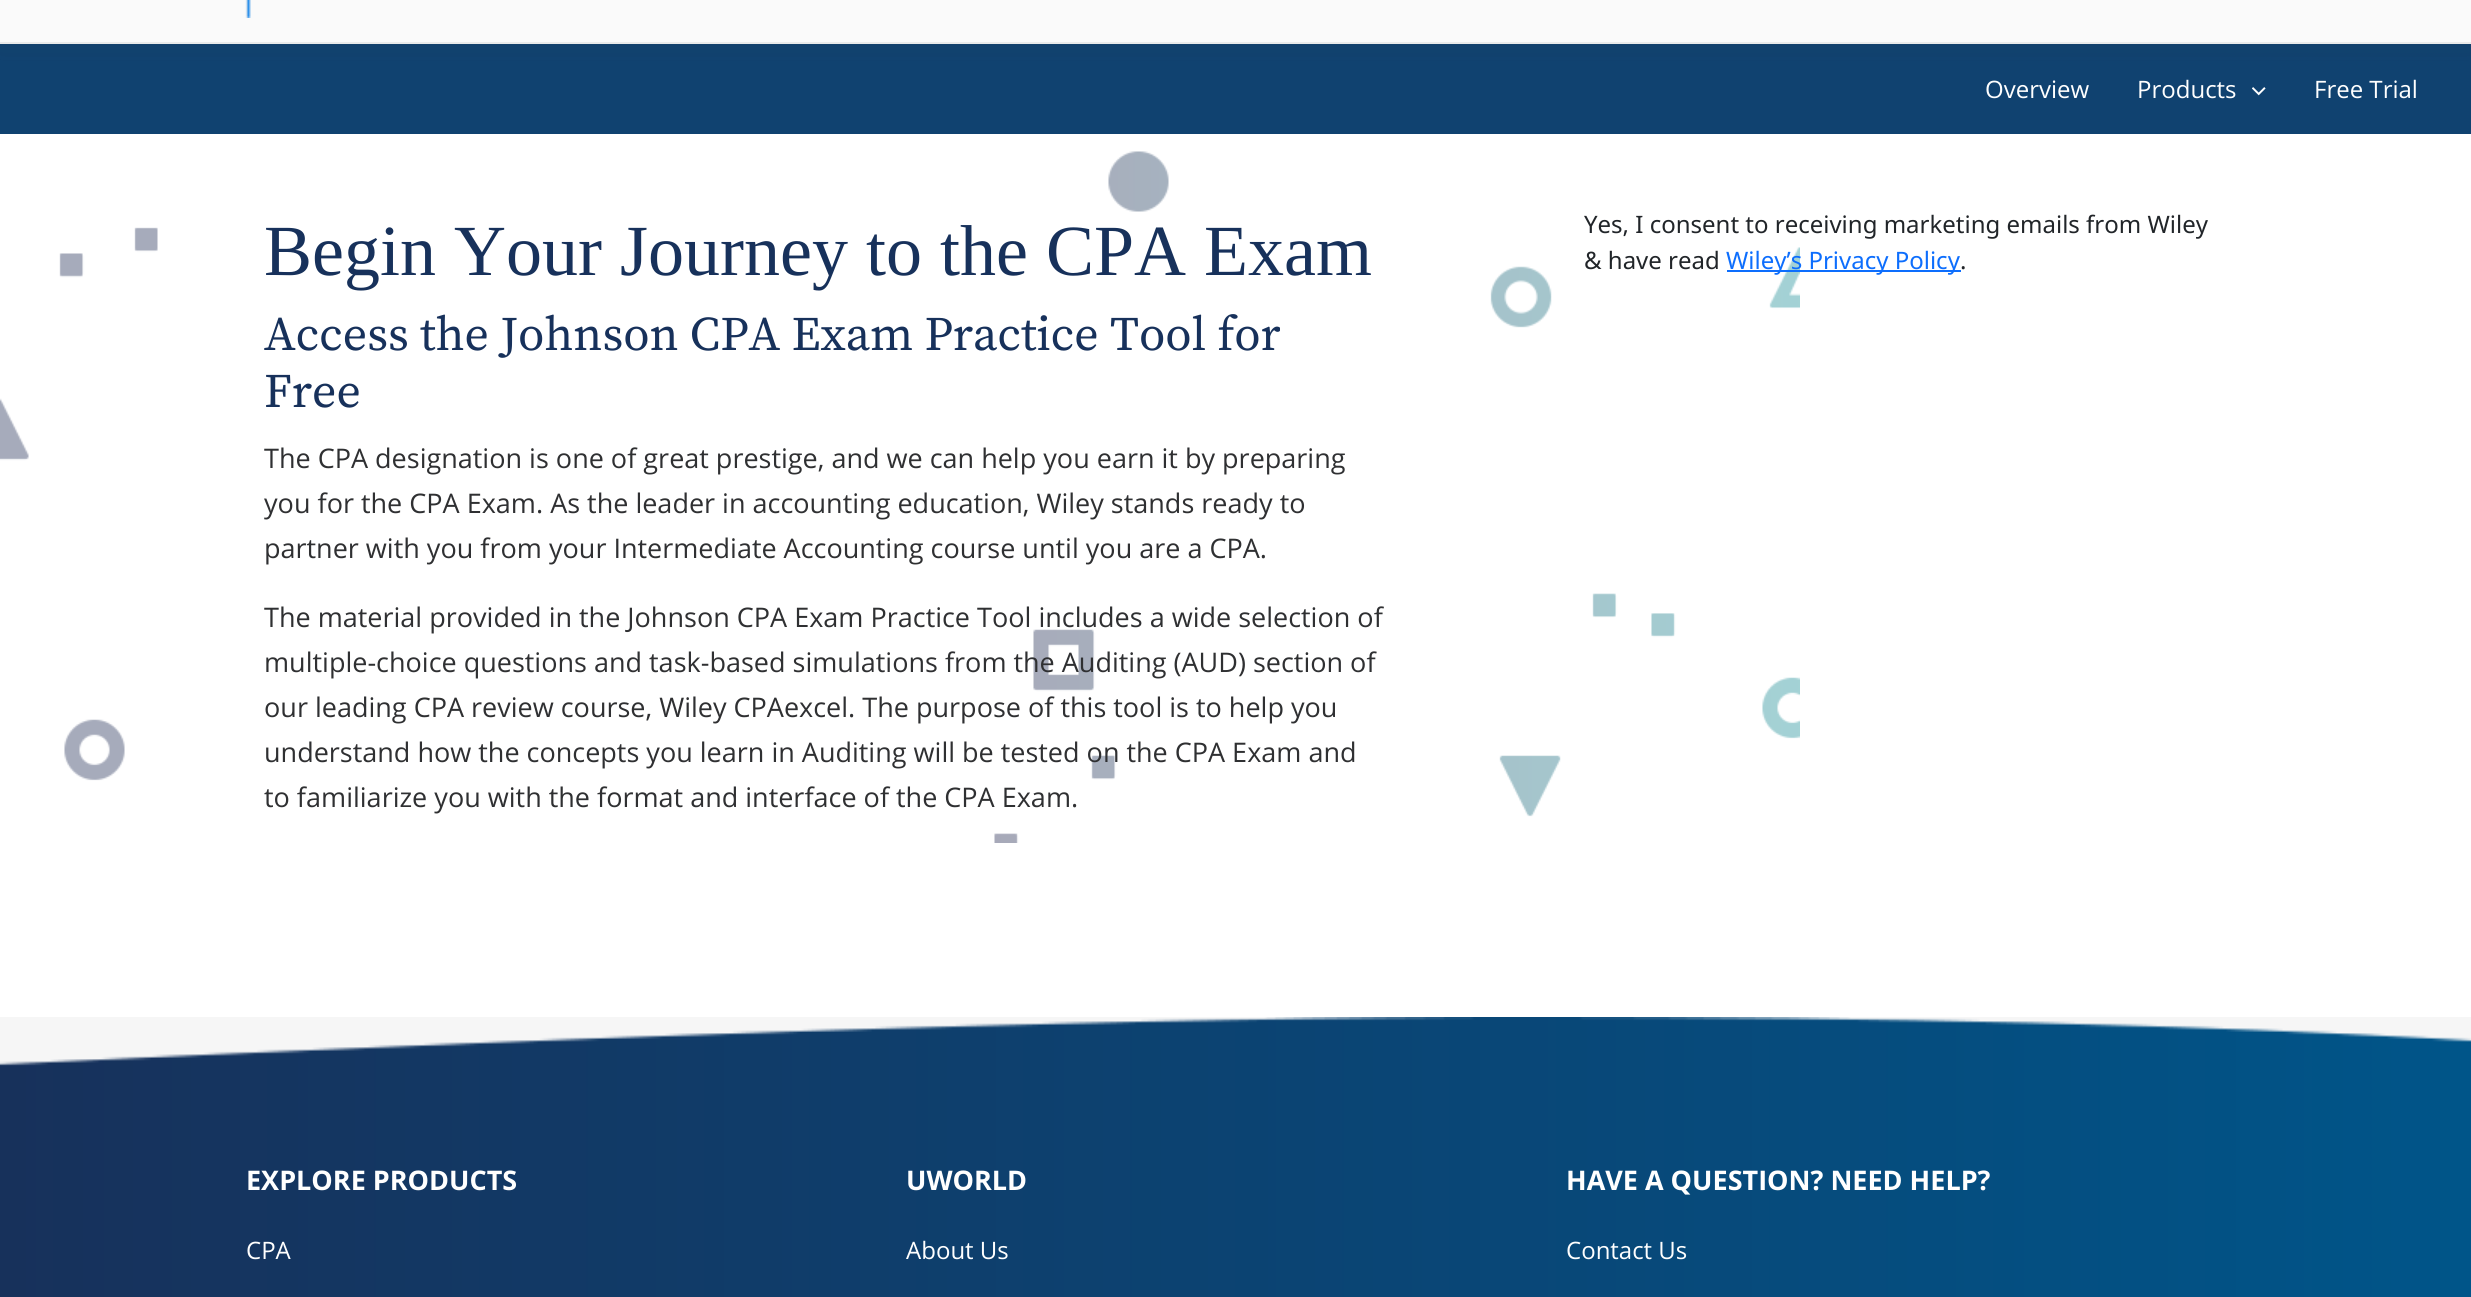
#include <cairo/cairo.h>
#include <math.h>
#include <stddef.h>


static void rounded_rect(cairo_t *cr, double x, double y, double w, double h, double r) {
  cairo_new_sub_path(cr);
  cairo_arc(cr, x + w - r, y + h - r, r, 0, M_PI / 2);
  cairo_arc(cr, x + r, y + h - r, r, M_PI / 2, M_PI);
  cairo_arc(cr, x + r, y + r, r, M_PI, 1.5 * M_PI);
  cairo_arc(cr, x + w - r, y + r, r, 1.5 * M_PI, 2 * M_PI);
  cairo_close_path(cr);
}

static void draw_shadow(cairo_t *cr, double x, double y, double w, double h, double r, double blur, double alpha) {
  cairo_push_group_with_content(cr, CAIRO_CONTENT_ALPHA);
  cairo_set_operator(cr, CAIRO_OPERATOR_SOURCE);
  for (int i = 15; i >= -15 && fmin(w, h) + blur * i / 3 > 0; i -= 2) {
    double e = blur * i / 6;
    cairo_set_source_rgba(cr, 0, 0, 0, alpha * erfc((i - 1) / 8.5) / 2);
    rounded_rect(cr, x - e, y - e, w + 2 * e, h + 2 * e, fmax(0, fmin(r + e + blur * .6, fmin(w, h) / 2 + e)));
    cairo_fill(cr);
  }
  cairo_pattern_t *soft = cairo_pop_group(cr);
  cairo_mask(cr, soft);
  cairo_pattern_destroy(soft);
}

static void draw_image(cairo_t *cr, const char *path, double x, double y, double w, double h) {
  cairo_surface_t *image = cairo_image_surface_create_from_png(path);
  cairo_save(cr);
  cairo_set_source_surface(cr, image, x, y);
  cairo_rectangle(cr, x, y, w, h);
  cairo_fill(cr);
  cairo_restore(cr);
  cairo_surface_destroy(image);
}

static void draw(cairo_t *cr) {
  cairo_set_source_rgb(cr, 1, 1, 1);
  cairo_paint(cr);
  cairo_set_source_rgb(cr, 16 / 255.0, 66 / 255.0, 112 / 255.0);
  cairo_rectangle(cr, 0, 44, 2471, 90);
  cairo_fill(cr);
  cairo_set_source_rgb(cr, 47 / 255.0, 48 / 255.0, 50 / 255.0);
  draw_shadow(cr, 0, -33, 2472, 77, 0, 11, 0.15);
  cairo_set_source_rgb(cr, 250 / 255.0, 250 / 255.0, 250 / 255.0);
  cairo_rectangle(cr, 0, 0, 2471, 42);
  cairo_fill(cr);
  cairo_set_source_rgb(cr, 234 / 255.0, 234 / 255.0, 234 / 255.0);
  cairo_rectangle(cr, 0, 42, 2471, 2);
  cairo_fill(cr);
  draw_image(cr, "images/1.png", 245, 0, 6, 18);
  draw_image(cr, "images/2.png", 2252, 87, 14, 9);
  draw_image(cr, "images/3.png", 0, 151, 1800, 692);
  cairo_set_source_rgb(cr, 13 / 255.0, 110 / 255.0, 253 / 255.0);
  cairo_rectangle(cr, 1727, 270, 234, 2);
  cairo_fill(cr);
  cairo_set_source_rgb(cr, 246 / 255.0, 246 / 255.0, 246 / 255.0);
  cairo_rectangle(cr, 0, 1017, 2471, 49);
  cairo_fill(cr);
  draw_image(cr, "images/4.png", 0, 1017, 2471, 280);
  cairo_select_font_face(cr, "Open Sans", CAIRO_FONT_SLANT_NORMAL, CAIRO_FONT_WEIGHT_NORMAL);
  cairo_set_font_size(cr, 24);
  cairo_set_source_rgb(cr, 1, 1, 1);
  cairo_move_to(cr, 1985, 98);
  cairo_show_text(cr, "Overview");
  cairo_move_to(cr, 2137, 98);
  cairo_show_text(cr, "Products");
  cairo_move_to(cr, 2314, 98);
  cairo_show_text(cr, "Free Trial");
  cairo_select_font_face(cr, "Liberation Serif", CAIRO_FONT_SLANT_NORMAL, CAIRO_FONT_WEIGHT_NORMAL);
  cairo_set_font_size(cr, 72);
  cairo_set_source_rgb(cr, 23 / 255.0, 49 / 255.0, 91 / 255.0);
  cairo_move_to(cr, 264, 275);
  cairo_show_text(cr, "Begin Your Journey to the CPA Exam");
  cairo_select_font_face(cr, "Source Serif Pro", CAIRO_FONT_SLANT_NORMAL, CAIRO_FONT_WEIGHT_NORMAL);
  cairo_set_font_size(cr, 48);
  cairo_move_to(cr, 264, 350);
  cairo_show_text(cr, "Access the Johnson CPA Exam Practice Tool for");
  cairo_move_to(cr, 264, 407);
  cairo_show_text(cr, "Free");
  cairo_select_font_face(cr, "Open Sans", CAIRO_FONT_SLANT_NORMAL, CAIRO_FONT_WEIGHT_NORMAL);
  cairo_set_font_size(cr, 27);
  cairo_set_source_rgb(cr, 47 / 255.0, 48 / 255.0, 50 / 255.0);
  cairo_move_to(cr, 264, 468);
  cairo_show_text(cr, "The CPA designation is one of great prestige, and we can help you earn it by preparing");
  cairo_move_to(cr, 264, 513);
  cairo_show_text(cr, "you for the CPA Exam. As the leader in accounting education, Wiley stands ready to");
  cairo_move_to(cr, 264, 558);
  cairo_show_text(cr, "partner with you from your Intermediate Accounting course until you are a CPA.");
  cairo_move_to(cr, 264, 627);
  cairo_show_text(cr, "The material provided in the Johnson CPA Exam Practice Tool includes a wide selection of");
  cairo_move_to(cr, 264, 672);
  cairo_show_text(cr, "multiple-choice questions and task-based simulations from the Auditing (AUD) section of");
  cairo_move_to(cr, 264, 717);
  cairo_show_text(cr, "our leading CPA review course, Wiley CPAexcel. The purpose of this tool is to help you");
  cairo_move_to(cr, 264, 762);
  cairo_show_text(cr, "understand how the concepts you learn in Auditing will be tested on the CPA Exam and");
  cairo_move_to(cr, 264, 807);
  cairo_show_text(cr, "to familiarize you with the format and interface of the CPA Exam.");
  cairo_select_font_face(cr, "Noto Sans", CAIRO_FONT_SLANT_NORMAL, CAIRO_FONT_WEIGHT_NORMAL);
  cairo_set_font_size(cr, 24);
  cairo_set_source_rgb(cr, 33 / 255.0, 37 / 255.0, 41 / 255.0);
  cairo_move_to(cr, 1584, 233);
  cairo_show_text(cr, "Yes, I consent to receiving marketing emails from Wiley");
  cairo_move_to(cr, 1584, 269);
  cairo_show_text(cr, "& have read");
  cairo_set_source_rgb(cr, 13 / 255.0, 110 / 255.0, 253 / 255.0);
  cairo_move_to(cr, 1726, 269);
  cairo_show_text(cr, "Wiley’s Privacy Policy");
  cairo_set_source_rgb(cr, 33 / 255.0, 37 / 255.0, 41 / 255.0);
  cairo_move_to(cr, 1960, 269);
  cairo_show_text(cr, ".");
  cairo_select_font_face(cr, "Open Sans", CAIRO_FONT_SLANT_NORMAL, CAIRO_FONT_WEIGHT_BOLD);
  cairo_set_font_size(cr, 27);
  cairo_set_source_rgb(cr, 1, 1, 1);
  cairo_move_to(cr, 246, 1190);
  cairo_show_text(cr, "EXPLORE PRODUCTS");
  cairo_select_font_face(cr, "Open Sans", CAIRO_FONT_SLANT_NORMAL, CAIRO_FONT_WEIGHT_NORMAL);
  cairo_set_font_size(cr, 24);
  cairo_move_to(cr, 246, 1259);
  cairo_show_text(cr, "CPA");
  cairo_select_font_face(cr, "Open Sans", CAIRO_FONT_SLANT_NORMAL, CAIRO_FONT_WEIGHT_BOLD);
  cairo_set_font_size(cr, 27);
  cairo_move_to(cr, 906, 1190);
  cairo_show_text(cr, "UWORLD");
  cairo_select_font_face(cr, "Open Sans", CAIRO_FONT_SLANT_NORMAL, CAIRO_FONT_WEIGHT_NORMAL);
  cairo_set_font_size(cr, 24);
  cairo_move_to(cr, 906, 1259);
  cairo_show_text(cr, "About Us");
  cairo_select_font_face(cr, "Open Sans", CAIRO_FONT_SLANT_NORMAL, CAIRO_FONT_WEIGHT_BOLD);
  cairo_set_font_size(cr, 27);
  cairo_move_to(cr, 1566, 1190);
  cairo_show_text(cr, "HAVE A QUESTION? NEED HELP?");
  cairo_select_font_face(cr, "Open Sans", CAIRO_FONT_SLANT_NORMAL, CAIRO_FONT_WEIGHT_NORMAL);
  cairo_set_font_size(cr, 24);
  cairo_move_to(cr, 1566, 1259);
  cairo_show_text(cr, "Contact Us");
}

int main(void) {
  cairo_surface_t *surface = cairo_image_surface_create(CAIRO_FORMAT_RGB24, 2471, 1297);
  cairo_t *cr = cairo_create(surface);
  cairo_font_options_t *options = cairo_font_options_create();
  cairo_font_options_set_hint_metrics(options, CAIRO_HINT_METRICS_OFF);
  cairo_font_options_set_hint_style(options, CAIRO_HINT_STYLE_NONE);
  cairo_set_font_options(cr, options);
  cairo_set_miter_limit(cr, 4);
  draw(cr);
  cairo_surface_write_to_png(surface, "out.png");
  cairo_font_options_destroy(options);
  cairo_destroy(cr);
  cairo_surface_destroy(surface);
  return 0;
}
